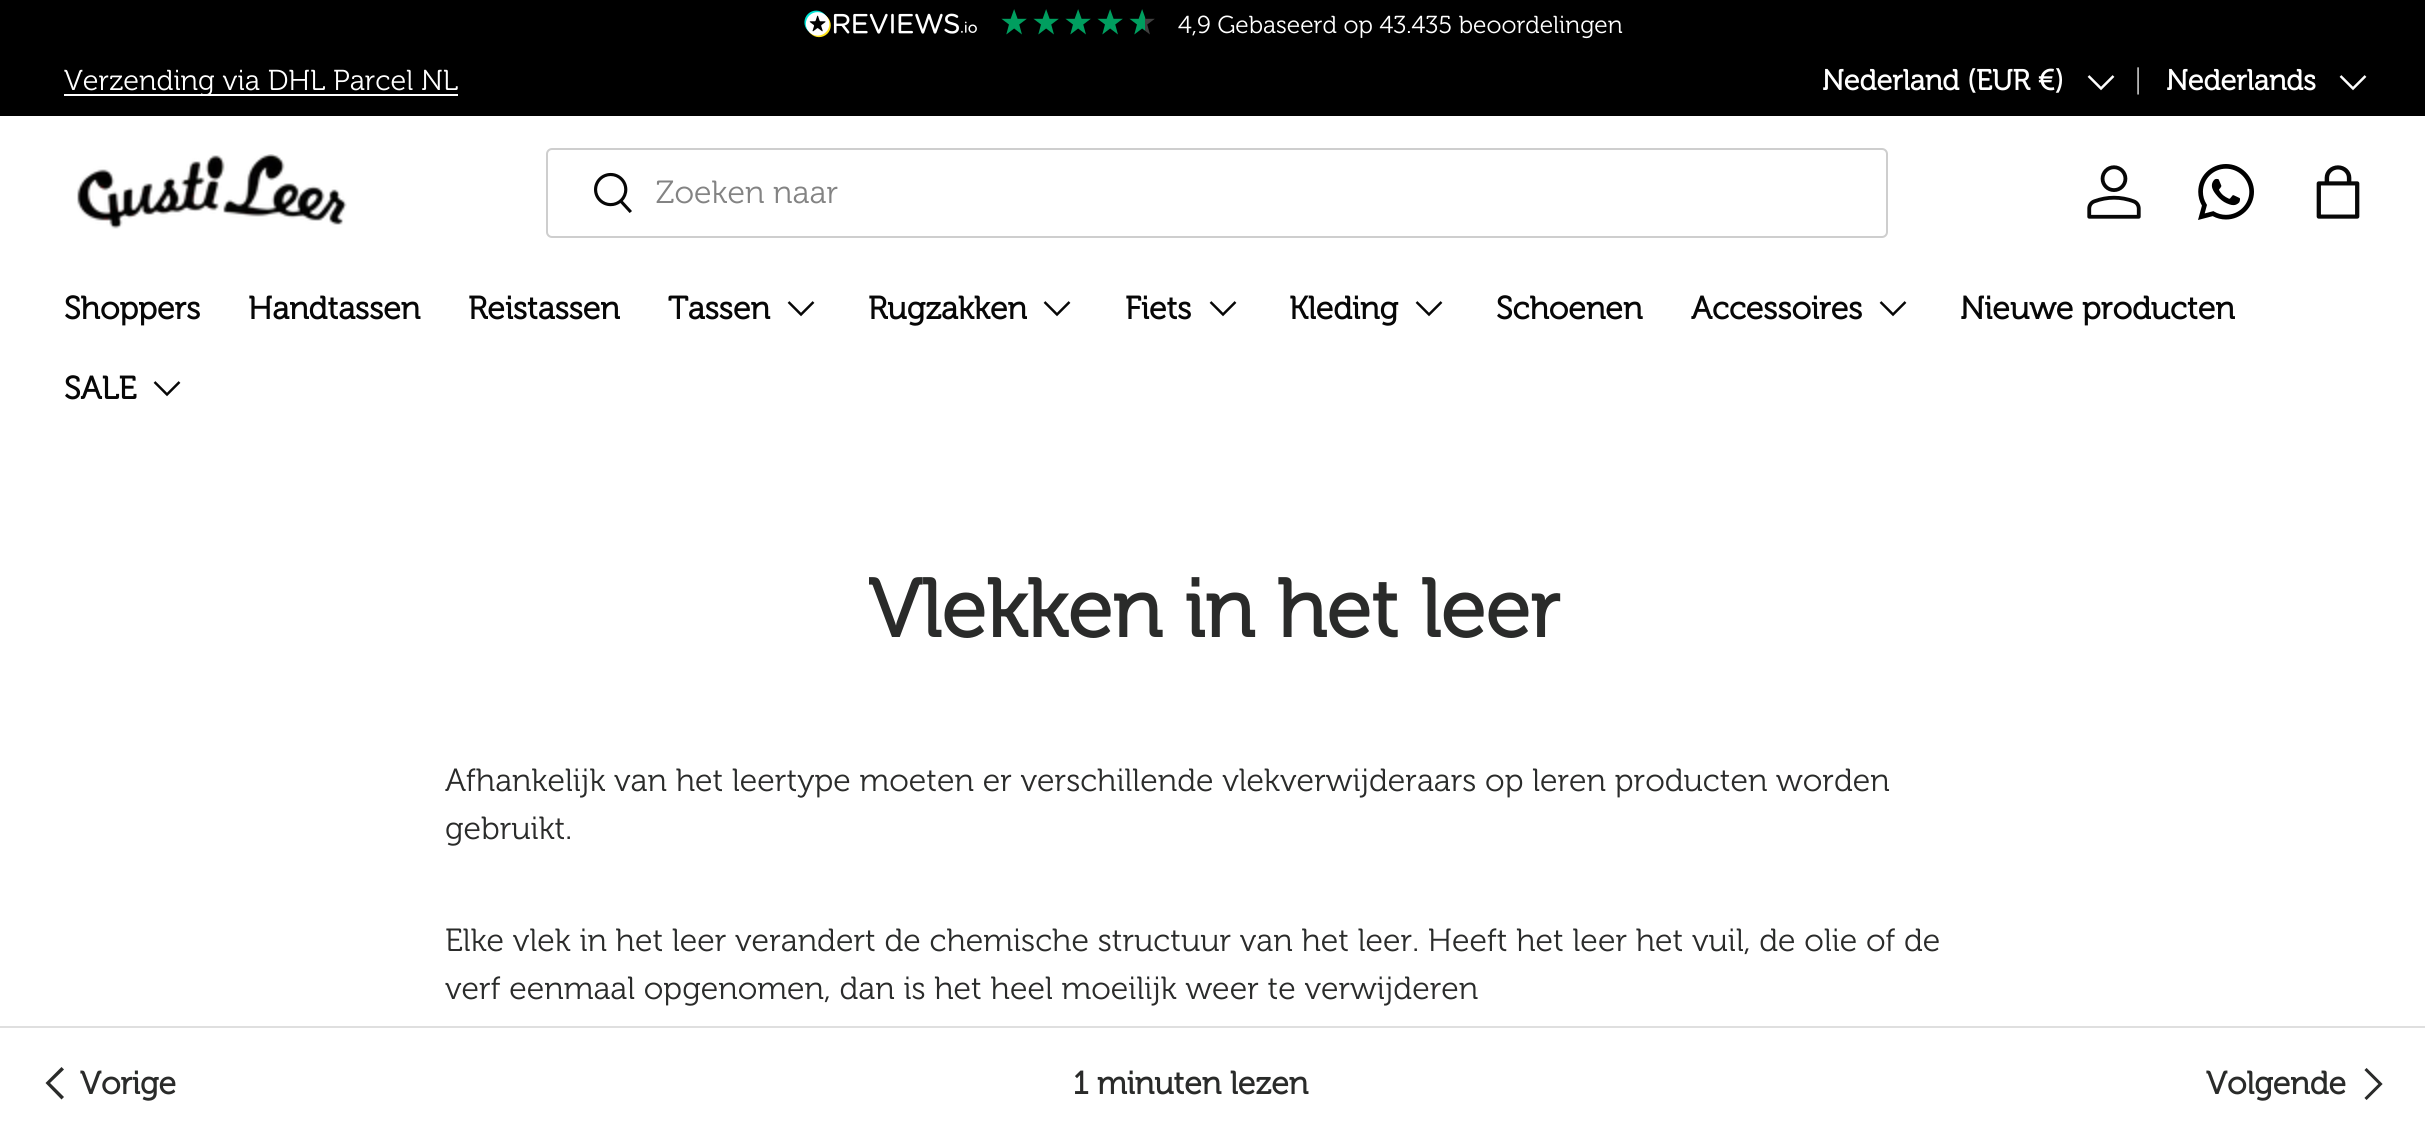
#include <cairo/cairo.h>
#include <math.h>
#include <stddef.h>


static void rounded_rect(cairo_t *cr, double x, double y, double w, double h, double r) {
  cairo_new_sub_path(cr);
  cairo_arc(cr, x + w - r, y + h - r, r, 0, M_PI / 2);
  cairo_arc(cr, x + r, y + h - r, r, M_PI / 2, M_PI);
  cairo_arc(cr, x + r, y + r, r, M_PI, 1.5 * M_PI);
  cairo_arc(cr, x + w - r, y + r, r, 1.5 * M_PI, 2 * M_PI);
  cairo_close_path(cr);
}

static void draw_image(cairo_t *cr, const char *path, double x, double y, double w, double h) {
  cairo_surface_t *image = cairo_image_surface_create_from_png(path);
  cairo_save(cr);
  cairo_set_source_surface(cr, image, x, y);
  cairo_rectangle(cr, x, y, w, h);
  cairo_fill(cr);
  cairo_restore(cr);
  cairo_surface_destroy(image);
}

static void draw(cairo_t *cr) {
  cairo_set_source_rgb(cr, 1, 1, 1);
  cairo_paint(cr);
  cairo_set_source_rgb(cr, 0, 0, 0);
  cairo_rectangle(cr, 0, 0, 2425, 116);
  cairo_fill(cr);
  draw_image(cr, "images/1.png", 804, 10, 173, 28);
  draw_image(cr, "images/2.png", 1001, 9, 26, 26);
  draw_image(cr, "images/2.png", 1033, 9, 26, 26);
  draw_image(cr, "images/2.png", 1065, 9, 26, 26);
  draw_image(cr, "images/2.png", 1097, 9, 26, 26);
  draw_image(cr, "images/3.png", 1129, 9, 26, 26);
  cairo_set_source_rgb(cr, 1, 1, 1);
  cairo_rectangle(cr, 64, 94, 394, 2);
  cairo_fill(cr);
  cairo_new_path(cr);
  cairo_move_to(cr, 2113.5, 76);
  cairo_line_to(cr, 2101, 88.5);
  cairo_line_to(cr, 2088.5, 76);
  cairo_set_line_width(cr, 2.5);
  cairo_stroke(cr);
  cairo_new_path(cr);
  cairo_move_to(cr, 2365.5, 76);
  cairo_line_to(cr, 2353, 88.5);
  cairo_line_to(cr, 2340.5, 76);
  cairo_stroke(cr);
  draw_image(cr, "images/4.png", 77, 154, 270, 75);
  rounded_rect(cr, 547, 149, 1340, 88, 5);
  cairo_set_source_rgb(cr, 206 / 255.0, 206 / 255.0, 206 / 255.0);
  cairo_set_line_width(cr, 2);
  cairo_stroke(cr);
  draw_image(cr, "images/5.png", 594, 172, 38, 41);
  draw_image(cr, "images/6.png", 2087, 165, 54, 54);
  draw_image(cr, "images/7.png", 2198, 164, 56, 56);
  draw_image(cr, "images/8.png", 2316, 165, 44, 54);
  cairo_new_path(cr);
  cairo_move_to(cr, 813.5, 302);
  cairo_line_to(cr, 801, 314.5);
  cairo_line_to(cr, 788.5, 302);
  cairo_set_source_rgb(cr, 7 / 255.0, 7 / 255.0, 7 / 255.0);
  cairo_set_line_width(cr, 2.5);
  cairo_stroke(cr);
  cairo_new_path(cr);
  cairo_move_to(cr, 1069.5, 302);
  cairo_line_to(cr, 1057, 314.5);
  cairo_line_to(cr, 1044.5, 302);
  cairo_stroke(cr);
  cairo_new_path(cr);
  cairo_move_to(cr, 1235.5, 302);
  cairo_line_to(cr, 1223, 314.5);
  cairo_line_to(cr, 1210.5, 302);
  cairo_stroke(cr);
  cairo_new_path(cr);
  cairo_move_to(cr, 1441.5, 302);
  cairo_line_to(cr, 1429, 314.5);
  cairo_line_to(cr, 1416.5, 302);
  cairo_stroke(cr);
  cairo_new_path(cr);
  cairo_move_to(cr, 1905.5, 302);
  cairo_line_to(cr, 1893, 314.5);
  cairo_line_to(cr, 1880.5, 302);
  cairo_stroke(cr);
  cairo_new_path(cr);
  cairo_move_to(cr, 179.5, 382);
  cairo_line_to(cr, 167, 394.5);
  cairo_line_to(cr, 154.5, 382);
  cairo_stroke(cr);
  cairo_set_source_rgb(cr, 223 / 255.0, 223 / 255.0, 223 / 255.0);
  cairo_rectangle(cr, 0, 1026, 2425, 2);
  cairo_fill(cr);
  cairo_set_source_rgb(cr, 42 / 255.0, 43 / 255.0, 42 / 255.0);
  cairo_new_path(cr);
  cairo_move_to(cr, 45.5, 1083);
  cairo_line_to(cr, 61.5, 1067);
  cairo_line_to(cr, 64, 1069.5);
  cairo_line_to(cr, 50, 1083);
  cairo_line_to(cr, 64, 1097);
  cairo_line_to(cr, 61.5, 1099.5);
  cairo_close_path(cr);
  cairo_fill(cr);
  cairo_new_path(cr);
  cairo_move_to(cr, 2365.5, 1069);
  cairo_line_to(cr, 2380.5, 1084);
  cairo_line_to(cr, 2365.5, 1099);
  cairo_set_line_width(cr, 3);
  cairo_stroke(cr);
  cairo_select_font_face(cr, "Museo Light", CAIRO_FONT_SLANT_NORMAL, CAIRO_FONT_WEIGHT_NORMAL);
  cairo_set_font_size(cr, 24.5);
  cairo_set_source_rgb(cr, 1, 1, 1);
  cairo_move_to(cr, 1178, 33);
  cairo_show_text(cr, "4,9 Gebaseerd op 43.435 beoordelingen");
  cairo_set_font_size(cr, 28.75);
  cairo_move_to(cr, 64, 90);
  cairo_show_text(cr, "Verzending via DHL Parcel NL");
  cairo_select_font_face(cr, "Museo", CAIRO_FONT_SLANT_NORMAL, CAIRO_FONT_WEIGHT_BOLD);
  cairo_move_to(cr, 1822, 90);
  cairo_show_text(cr, "Nederland (EUR €)");
  cairo_select_font_face(cr, "Museo Light", CAIRO_FONT_SLANT_NORMAL, CAIRO_FONT_WEIGHT_NORMAL);
  cairo_set_source_rgb(cr, 179 / 255.0, 179 / 255.0, 179 / 255.0);
  cairo_move_to(cr, 2134, 90);
  cairo_show_text(cr, "|");
  cairo_select_font_face(cr, "Museo", CAIRO_FONT_SLANT_NORMAL, CAIRO_FONT_WEIGHT_BOLD);
  cairo_set_source_rgb(cr, 1, 1, 1);
  cairo_move_to(cr, 2166, 90);
  cairo_show_text(cr, "Nederlands");
  cairo_select_font_face(cr, "Museo Light", CAIRO_FONT_SLANT_NORMAL, CAIRO_FONT_WEIGHT_NORMAL);
  cairo_set_font_size(cr, 32);
  cairo_set_source_rgb(cr, 131 / 255.0, 131 / 255.0, 131 / 255.0);
  cairo_move_to(cr, 656, 203);
  cairo_show_text(cr, "Zoeken naar");
  cairo_select_font_face(cr, "Museo", CAIRO_FONT_SLANT_NORMAL, CAIRO_FONT_WEIGHT_BOLD);
  cairo_set_source_rgb(cr, 7 / 255.0, 7 / 255.0, 7 / 255.0);
  cairo_move_to(cr, 64, 319);
  cairo_show_text(cr, "Shoppers");
  cairo_move_to(cr, 248, 319);
  cairo_show_text(cr, "Handtassen");
  cairo_move_to(cr, 468, 319);
  cairo_show_text(cr, "Reistassen");
  cairo_move_to(cr, 668, 319);
  cairo_show_text(cr, "Tassen");
  cairo_move_to(cr, 868, 319);
  cairo_show_text(cr, "Rugzakken");
  cairo_move_to(cr, 1125, 319);
  cairo_show_text(cr, "Fiets");
  cairo_move_to(cr, 1289, 319);
  cairo_show_text(cr, "Kleding");
  cairo_move_to(cr, 1496, 319);
  cairo_show_text(cr, "Schoenen");
  cairo_move_to(cr, 1691, 319);
  cairo_show_text(cr, "Accessoires");
  cairo_move_to(cr, 1960, 319);
  cairo_show_text(cr, "Nieuwe producten");
  cairo_move_to(cr, 64, 399);
  cairo_show_text(cr, "SALE");
  cairo_set_font_size(cr, 81.75);
  cairo_set_source_rgb(cr, 42 / 255.0, 43 / 255.0, 42 / 255.0);
  cairo_move_to(cr, 868, 637);
  cairo_show_text(cr, "Vlekken in het leer");
  cairo_select_font_face(cr, "Museo Light", CAIRO_FONT_SLANT_NORMAL, CAIRO_FONT_WEIGHT_NORMAL);
  cairo_set_font_size(cr, 32);
  cairo_move_to(cr, 445, 791);
  cairo_show_text(cr, "Afhankelijk van het leertype moeten er verschillende vlekverwijderaars op leren producten worden");
  cairo_move_to(cr, 445, 839);
  cairo_show_text(cr, "gebruikt.");
  cairo_move_to(cr, 445, 951);
  cairo_show_text(cr, "Elke vlek in het leer verandert de chemische structuur van het leer. Heeft het leer het vuil, de olie of de");
  cairo_move_to(cr, 445, 999);
  cairo_show_text(cr, "verf eenmaal opgenomen, dan is het heel moeilijk weer te verwijderen");
  cairo_select_font_face(cr, "Museo", CAIRO_FONT_SLANT_NORMAL, CAIRO_FONT_WEIGHT_BOLD);
  cairo_move_to(cr, 80, 1094);
  cairo_show_text(cr, "Vorige");
  cairo_move_to(cr, 1073, 1094);
  cairo_show_text(cr, "1 minuten lezen");
  cairo_move_to(cr, 2206, 1094);
  cairo_show_text(cr, "Volgende");
}

int main(void) {
  cairo_surface_t *surface = cairo_image_surface_create(CAIRO_FORMAT_RGB24, 2425, 1139);
  cairo_t *cr = cairo_create(surface);
  cairo_font_options_t *options = cairo_font_options_create();
  cairo_font_options_set_hint_metrics(options, CAIRO_HINT_METRICS_OFF);
  cairo_font_options_set_hint_style(options, CAIRO_HINT_STYLE_NONE);
  cairo_set_font_options(cr, options);
  cairo_set_miter_limit(cr, 4);
  draw(cr);
  cairo_surface_write_to_png(surface, "out.png");
  cairo_font_options_destroy(options);
  cairo_destroy(cr);
  cairo_surface_destroy(surface);
  return 0;
}
